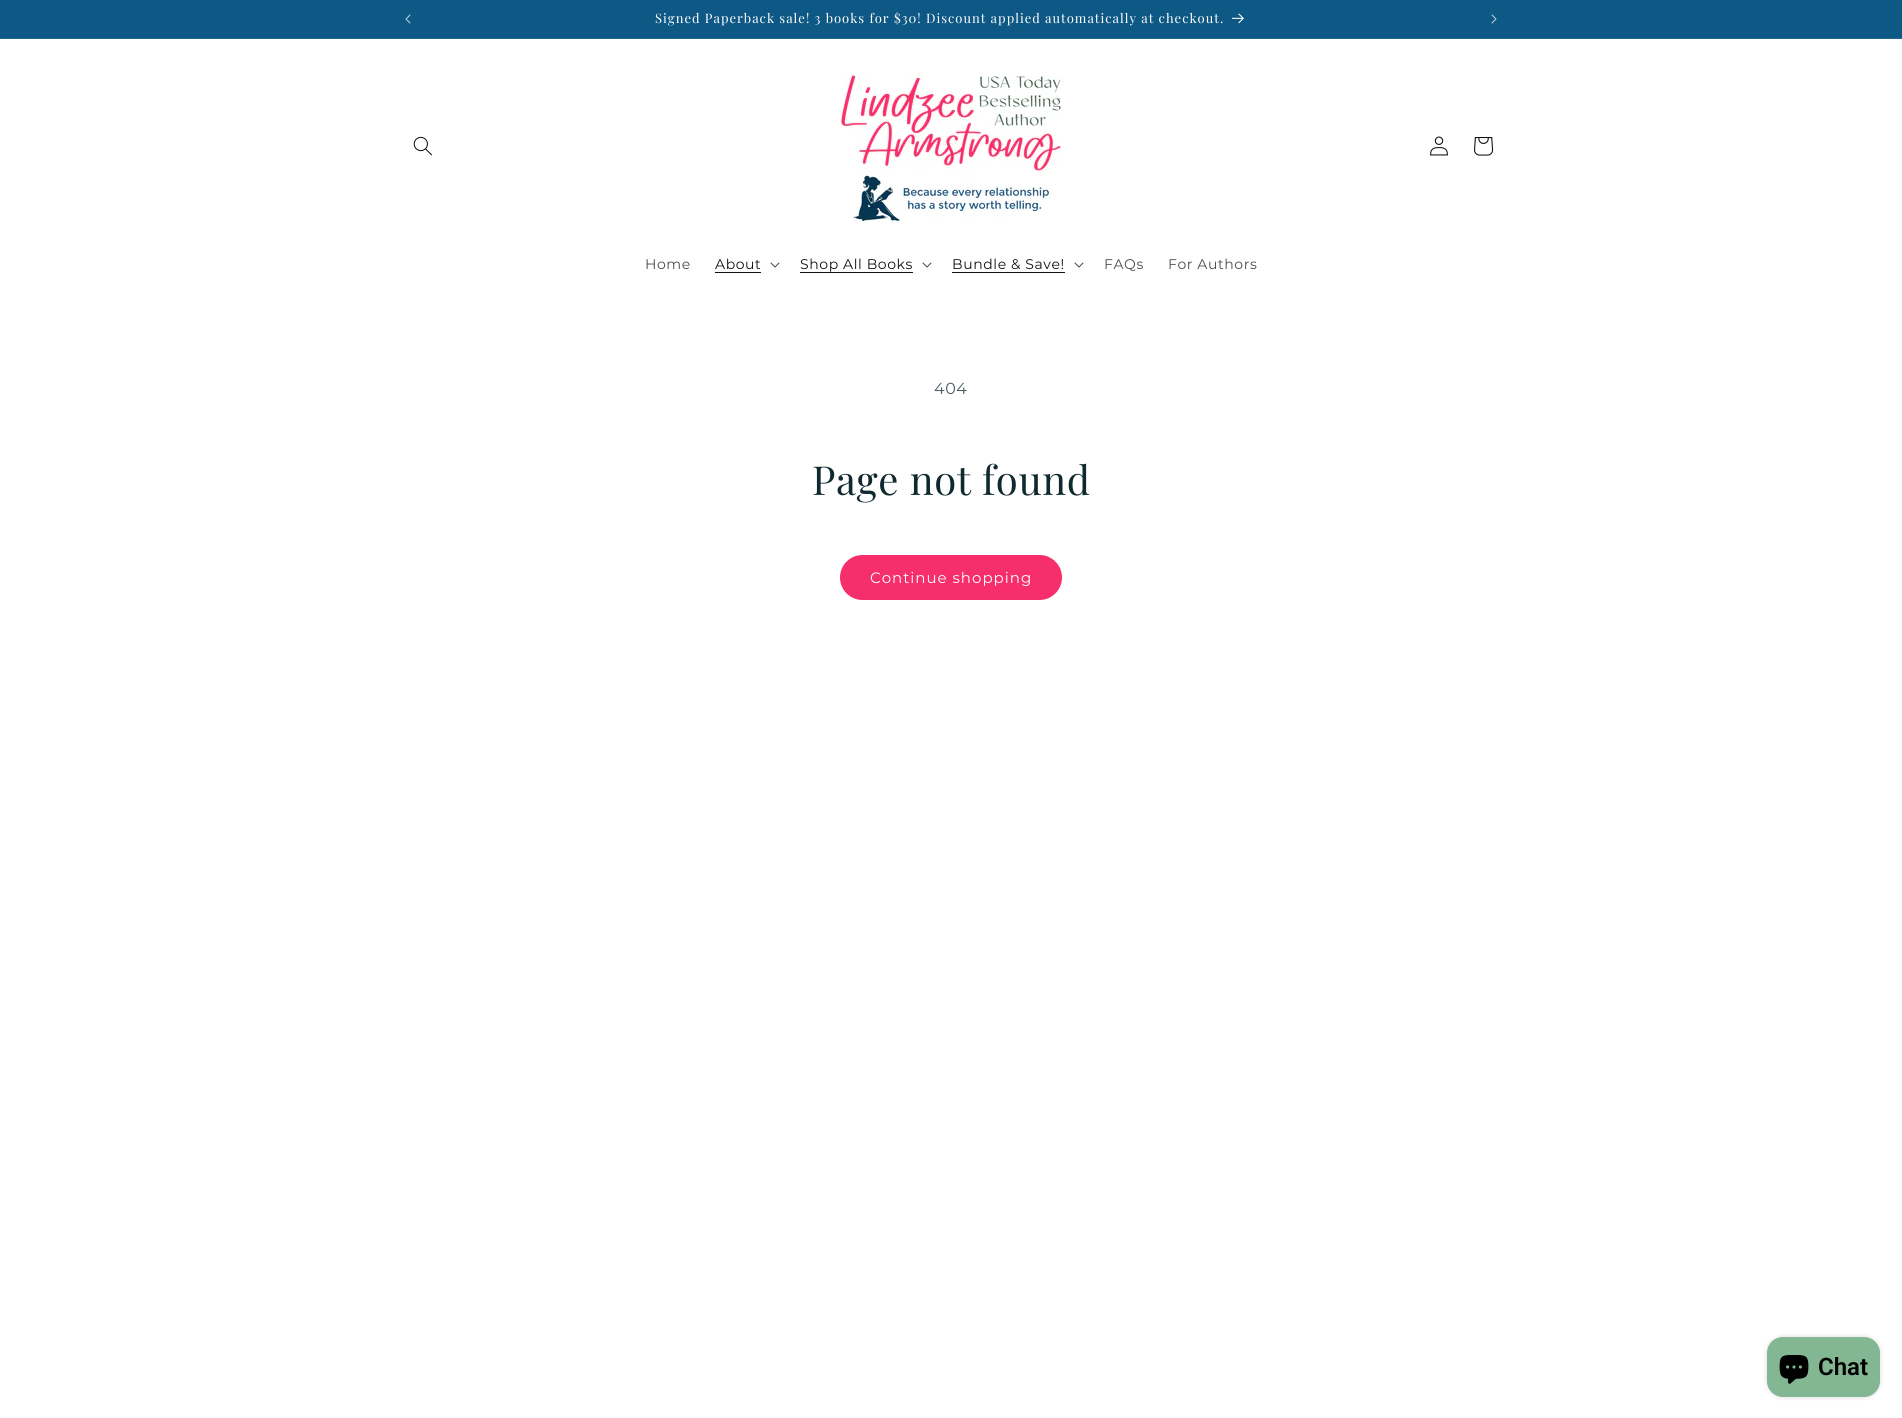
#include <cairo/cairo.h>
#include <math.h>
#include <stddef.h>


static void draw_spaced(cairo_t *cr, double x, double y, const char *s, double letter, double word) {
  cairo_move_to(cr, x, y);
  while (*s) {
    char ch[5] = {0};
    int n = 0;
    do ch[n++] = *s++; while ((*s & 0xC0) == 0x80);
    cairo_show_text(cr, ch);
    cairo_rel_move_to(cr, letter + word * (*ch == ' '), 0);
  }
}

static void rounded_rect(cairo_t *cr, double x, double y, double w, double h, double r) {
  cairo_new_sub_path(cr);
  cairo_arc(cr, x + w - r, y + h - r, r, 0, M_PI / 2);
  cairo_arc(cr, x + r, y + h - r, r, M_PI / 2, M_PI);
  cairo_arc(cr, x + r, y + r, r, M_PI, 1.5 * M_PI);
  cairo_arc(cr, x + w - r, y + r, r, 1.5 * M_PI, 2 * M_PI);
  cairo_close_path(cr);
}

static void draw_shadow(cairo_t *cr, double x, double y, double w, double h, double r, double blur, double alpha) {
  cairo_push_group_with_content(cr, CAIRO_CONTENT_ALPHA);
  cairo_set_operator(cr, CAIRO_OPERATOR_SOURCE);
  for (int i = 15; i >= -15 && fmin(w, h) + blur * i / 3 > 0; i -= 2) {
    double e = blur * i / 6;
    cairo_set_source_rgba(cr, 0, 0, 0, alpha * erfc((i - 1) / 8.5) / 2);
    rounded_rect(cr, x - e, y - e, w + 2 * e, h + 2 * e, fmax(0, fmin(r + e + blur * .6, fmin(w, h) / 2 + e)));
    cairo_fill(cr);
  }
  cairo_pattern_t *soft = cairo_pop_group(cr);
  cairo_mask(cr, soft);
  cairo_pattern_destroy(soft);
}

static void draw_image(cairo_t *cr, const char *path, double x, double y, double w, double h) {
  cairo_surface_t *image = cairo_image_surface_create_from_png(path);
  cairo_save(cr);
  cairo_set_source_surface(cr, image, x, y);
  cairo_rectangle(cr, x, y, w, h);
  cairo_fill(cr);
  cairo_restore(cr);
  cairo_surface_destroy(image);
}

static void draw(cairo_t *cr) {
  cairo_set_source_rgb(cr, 1, 1, 1);
  cairo_paint(cr);
  cairo_set_source_rgb(cr, 14 / 255.0, 88 / 255.0, 133 / 255.0);
  cairo_rectangle(cr, 0, 0, 1902, 38);
  cairo_fill(cr);
  cairo_set_source_rgb(cr, 33 / 255.0, 101 / 255.0, 143 / 255.0);
  cairo_rectangle(cr, 0, 38, 1902, 1);
  cairo_fill(cr);
  draw_image(cr, "images/1.png", 405, 14, 6, 10);
  draw_image(cr, "images/2.png", 1232, 13, 12, 11);
  draw_image(cr, "images/3.png", 1491, 14, 6, 10);
  draw_image(cr, "images/4.png", 413, 136, 19, 20);
  draw_image(cr, "images/5.png", 840, 74, 224, 151);
  draw_image(cr, "images/6.png", 1430, 136, 18, 20);
  draw_image(cr, "images/7.png", 1474, 137, 20, 19);
  cairo_set_source_rgb(cr, 18 / 255.0, 18 / 255.0, 18 / 255.0);
  cairo_rectangle(cr, 715, 272, 46, 1);
  cairo_fill(cr);
  draw_image(cr, "images/8.png", 770, 262, 10, 6);
  cairo_rectangle(cr, 800, 272, 113, 1);
  cairo_fill(cr);
  draw_image(cr, "images/8.png", 922, 262, 10, 6);
  cairo_rectangle(cr, 952, 272, 113, 1);
  cairo_fill(cr);
  draw_image(cr, "images/8.png", 1074, 262, 10, 6);
  cairo_set_source_rgb(cr, 246 / 255.0, 46 / 255.0, 108 / 255.0);
  rounded_rect(cr, 840, 555, 222, 45, 22.5);
  cairo_fill(cr);
  cairo_set_source_rgb(cr, 0, 0, 0);
  draw_shadow(cr, 1767, 1337, 113, 60, 16, 2.5, 0.15);
  cairo_set_source_rgb(cr, 131 / 255.0, 182 / 255.0, 146 / 255.0);
  rounded_rect(cr, 1767, 1337, 113, 60, 16);
  cairo_fill(cr);
  draw_image(cr, "images/9.png", 1779, 1355, 30, 29);
  cairo_select_font_face(cr, "Playfair Display", CAIRO_FONT_SLANT_NORMAL, CAIRO_FONT_WEIGHT_NORMAL);
  cairo_set_font_size(cr, 13);
  cairo_set_source_rgb(cr, 1, 1, 1);
  draw_spaced(cr, 655, 23, "Signed Paperback sale! 3 books for $30! Discount applied automatically at checkout.", 1, 0);
  cairo_select_font_face(cr, "Montserrat", CAIRO_FONT_SLANT_NORMAL, CAIRO_FONT_WEIGHT_NORMAL);
  cairo_set_font_size(cr, 14);
  cairo_set_source_rgb(cr, 77 / 255.0, 77 / 255.0, 77 / 255.0);
  draw_spaced(cr, 645, 269, "Home", 0.6, 0);
  cairo_set_source_rgb(cr, 18 / 255.0, 18 / 255.0, 18 / 255.0);
  draw_spaced(cr, 715, 269, "About", 0.6, 0);
  draw_spaced(cr, 800, 269, "Shop All Books", 0.6, 0);
  draw_spaced(cr, 952, 269, "Bundle & Save!", 0.6, 0);
  cairo_set_source_rgb(cr, 77 / 255.0, 77 / 255.0, 77 / 255.0);
  draw_spaced(cr, 1104, 269, "FAQs", 0.6, 0);
  draw_spaced(cr, 1168, 269, "For Authors", 0.6, 0);
  cairo_set_font_size(cr, 16);
  cairo_set_source_rgb(cr, 75 / 255.0, 95 / 255.0, 99 / 255.0);
  draw_spaced(cr, 934, 394, "404", 0.6, 0);
  cairo_select_font_face(cr, "Playfair Display", CAIRO_FONT_SLANT_NORMAL, CAIRO_FONT_WEIGHT_NORMAL);
  cairo_set_font_size(cr, 40);
  cairo_set_source_rgb(cr, 15 / 255.0, 41 / 255.0, 47 / 255.0);
  draw_spaced(cr, 812, 495, "Page not found", 0.6, 0);
  cairo_select_font_face(cr, "Montserrat", CAIRO_FONT_SLANT_NORMAL, CAIRO_FONT_WEIGHT_NORMAL);
  cairo_set_font_size(cr, 15);
  cairo_set_source_rgb(cr, 1, 1, 1);
  draw_spaced(cr, 870, 583, "Continue shopping", 1, 0);
  cairo_select_font_face(cr, "Roboto SemiBold", CAIRO_FONT_SLANT_NORMAL, CAIRO_FONT_WEIGHT_NORMAL);
  cairo_set_font_size(cr, 24);
  cairo_set_source_rgb(cr, 0, 0, 0);
  cairo_move_to(cr, 1818, 1375);
  cairo_show_text(cr, "Chat");
}

int main(void) {
  cairo_surface_t *surface = cairo_image_surface_create(CAIRO_FORMAT_RGB24, 1902, 1418);
  cairo_t *cr = cairo_create(surface);
  cairo_font_options_t *options = cairo_font_options_create();
  cairo_font_options_set_hint_metrics(options, CAIRO_HINT_METRICS_OFF);
  cairo_font_options_set_hint_style(options, CAIRO_HINT_STYLE_NONE);
  cairo_set_font_options(cr, options);
  cairo_set_miter_limit(cr, 4);
  draw(cr);
  cairo_surface_write_to_png(surface, "out.png");
  cairo_font_options_destroy(options);
  cairo_destroy(cr);
  cairo_surface_destroy(surface);
  return 0;
}
